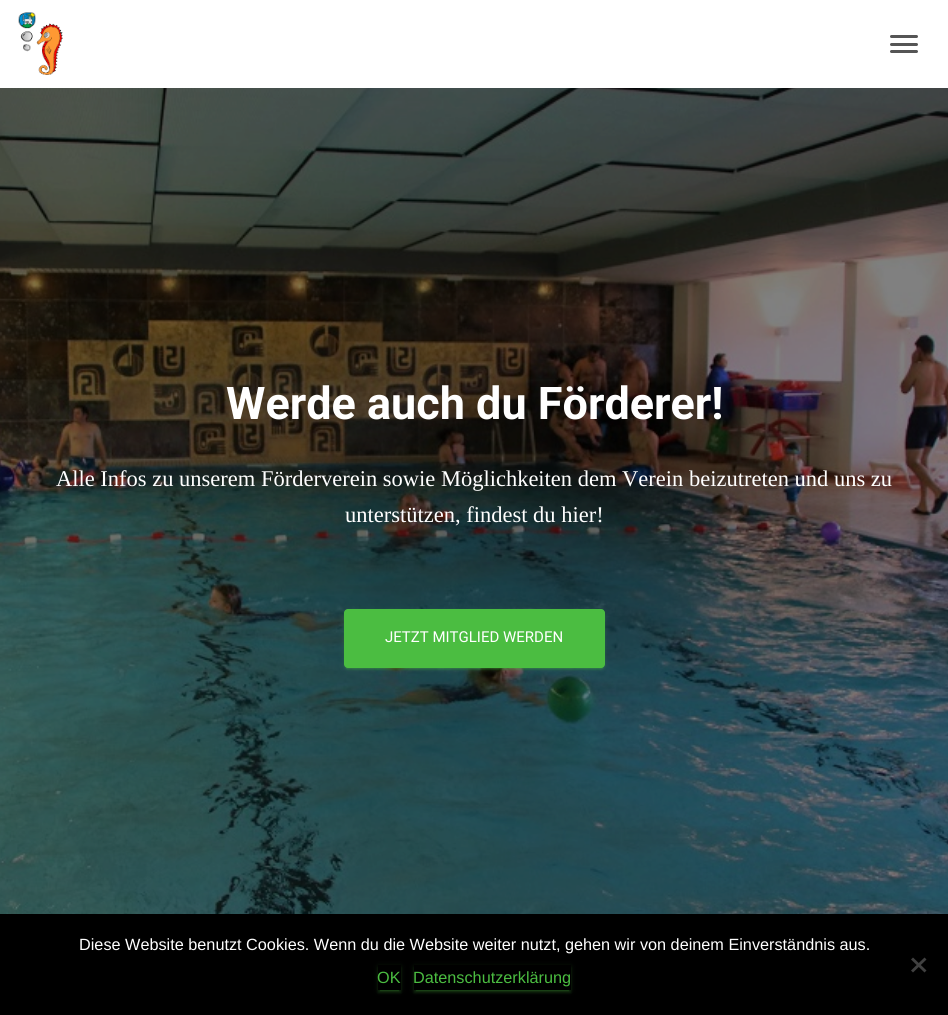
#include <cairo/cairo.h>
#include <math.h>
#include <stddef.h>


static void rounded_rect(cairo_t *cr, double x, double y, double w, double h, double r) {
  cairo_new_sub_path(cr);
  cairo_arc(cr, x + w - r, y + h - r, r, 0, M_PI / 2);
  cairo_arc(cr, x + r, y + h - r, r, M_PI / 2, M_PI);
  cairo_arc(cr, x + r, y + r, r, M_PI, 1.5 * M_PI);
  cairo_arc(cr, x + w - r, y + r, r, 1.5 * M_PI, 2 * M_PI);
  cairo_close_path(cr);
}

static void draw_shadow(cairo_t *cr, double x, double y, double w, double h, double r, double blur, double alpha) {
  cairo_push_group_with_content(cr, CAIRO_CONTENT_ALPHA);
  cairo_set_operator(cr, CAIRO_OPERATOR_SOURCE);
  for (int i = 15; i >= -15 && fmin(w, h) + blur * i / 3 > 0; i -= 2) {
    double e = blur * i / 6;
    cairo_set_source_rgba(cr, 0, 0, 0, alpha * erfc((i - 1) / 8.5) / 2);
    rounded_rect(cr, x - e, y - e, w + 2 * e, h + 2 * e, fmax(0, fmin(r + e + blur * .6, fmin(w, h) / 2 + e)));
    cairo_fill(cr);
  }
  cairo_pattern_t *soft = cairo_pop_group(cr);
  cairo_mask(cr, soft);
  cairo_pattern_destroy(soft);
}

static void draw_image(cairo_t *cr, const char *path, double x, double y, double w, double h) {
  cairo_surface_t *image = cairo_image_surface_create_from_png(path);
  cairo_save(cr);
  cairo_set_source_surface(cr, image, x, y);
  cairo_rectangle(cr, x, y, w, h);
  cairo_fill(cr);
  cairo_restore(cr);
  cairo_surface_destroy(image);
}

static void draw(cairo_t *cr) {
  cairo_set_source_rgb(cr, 1, 1, 1);
  cairo_paint(cr);
  draw_image(cr, "images/1.png", 18, 12, 45, 63);
  cairo_set_source_rgb(cr, 85 / 255.0, 85 / 255.0, 85 / 255.0);
  rounded_rect(cr, 890, 35, 28, 3, 1.5);
  cairo_fill(cr);
  rounded_rect(cr, 890, 43, 28, 3, 1.5);
  cairo_fill(cr);
  rounded_rect(cr, 890, 50, 28, 3, 1.5);
  cairo_fill(cr);
  draw_image(cr, "images/2.png", 0, 88, 948, 826);
  cairo_set_source_rgb(cr, 75 / 255.0, 189 / 255.0, 65 / 255.0);
  draw_shadow(cr, 344, 610, 261, 59, 4, 3, 0.12);
  draw_shadow(cr, 346, 615, 257, 54, 1, 0.5, 0.2);
  draw_shadow(cr, 344, 611, 261, 59, 4, 1, 0.14);
  cairo_set_source_rgb(cr, 75 / 255.0, 189 / 255.0, 65 / 255.0);
  rounded_rect(cr, 344, 609, 261, 59, 4);
  cairo_fill(cr);
  cairo_set_source_rgb(cr, 0, 0, 0);
  cairo_rectangle(cr, 0, 914, 948, 101);
  cairo_fill(cr);
  cairo_set_source_rgb(cr, 64 / 255.0, 64 / 255.0, 64 / 255.0);
  cairo_new_path(cr);
  cairo_move_to(cr, 924.5, 957.5);
  cairo_line_to(cr, 926.5, 959.5);
  cairo_line_to(cr, 913, 972.5);
  cairo_line_to(cr, 911, 970.5);
  cairo_close_path(cr);
  cairo_fill(cr);
  cairo_new_path(cr);
  cairo_move_to(cr, 911, 959.5);
  cairo_line_to(cr, 913, 957.5);
  cairo_line_to(cr, 926.5, 970.5);
  cairo_line_to(cr, 924.5, 972.5);
  cairo_close_path(cr);
  cairo_fill(cr);
  cairo_save(cr);
  cairo_set_fill_rule(cr, CAIRO_FILL_RULE_EVEN_ODD);
  cairo_new_path(cr);
  cairo_move_to(cr, 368, 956);
  cairo_line_to(cr, 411, 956);
  cairo_line_to(cr, 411, 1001);
  cairo_line_to(cr, 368, 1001);
  cairo_close_path(cr);
  cairo_move_to(cr, 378, 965);
  cairo_line_to(cr, 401, 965);
  cairo_line_to(cr, 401, 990);
  cairo_line_to(cr, 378, 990);
  cairo_close_path(cr);
  cairo_clip(cr);
  cairo_set_source_rgb(cr, 75 / 255.0, 189 / 255.0, 65 / 255.0);
  draw_shadow(cr, 378, 966, 23, 25, 0, 3, 0.12);
  cairo_restore(cr);
  cairo_save(cr);
  cairo_rectangle(cr, 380, 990, 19, 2);
  cairo_clip(cr);
  cairo_set_source_rgb(cr, 75 / 255.0, 189 / 255.0, 65 / 255.0);
  draw_shadow(cr, 380, 971, 19, 20, 0, 0.5, 0.2);
  cairo_restore(cr);
  cairo_save(cr);
  cairo_set_fill_rule(cr, CAIRO_FILL_RULE_EVEN_ODD);
  cairo_new_path(cr);
  cairo_move_to(cr, 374, 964);
  cairo_line_to(cr, 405, 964);
  cairo_line_to(cr, 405, 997);
  cairo_line_to(cr, 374, 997);
  cairo_close_path(cr);
  cairo_move_to(cr, 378, 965);
  cairo_line_to(cr, 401, 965);
  cairo_line_to(cr, 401, 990);
  cairo_line_to(cr, 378, 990);
  cairo_close_path(cr);
  cairo_clip(cr);
  cairo_set_source_rgb(cr, 75 / 255.0, 189 / 255.0, 65 / 255.0);
  draw_shadow(cr, 378, 968, 23, 25, 0, 1, 0.14);
  cairo_restore(cr);
  cairo_save(cr);
  cairo_set_fill_rule(cr, CAIRO_FILL_RULE_EVEN_ODD);
  cairo_new_path(cr);
  cairo_move_to(cr, 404, 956);
  cairo_line_to(cr, 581, 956);
  cairo_line_to(cr, 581, 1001);
  cairo_line_to(cr, 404, 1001);
  cairo_close_path(cr);
  cairo_move_to(cr, 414, 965);
  cairo_line_to(cr, 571, 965);
  cairo_line_to(cr, 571, 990);
  cairo_line_to(cr, 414, 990);
  cairo_close_path(cr);
  cairo_clip(cr);
  cairo_set_source_rgb(cr, 75 / 255.0, 189 / 255.0, 65 / 255.0);
  draw_shadow(cr, 414, 966, 157, 25, 0, 3, 0.12);
  cairo_restore(cr);
  cairo_save(cr);
  cairo_rectangle(cr, 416, 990, 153, 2);
  cairo_clip(cr);
  cairo_set_source_rgb(cr, 75 / 255.0, 189 / 255.0, 65 / 255.0);
  draw_shadow(cr, 416, 971, 153, 20, 0, 0.5, 0.2);
  cairo_restore(cr);
  cairo_save(cr);
  cairo_set_fill_rule(cr, CAIRO_FILL_RULE_EVEN_ODD);
  cairo_new_path(cr);
  cairo_move_to(cr, 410, 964);
  cairo_line_to(cr, 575, 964);
  cairo_line_to(cr, 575, 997);
  cairo_line_to(cr, 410, 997);
  cairo_close_path(cr);
  cairo_move_to(cr, 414, 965);
  cairo_line_to(cr, 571, 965);
  cairo_line_to(cr, 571, 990);
  cairo_line_to(cr, 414, 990);
  cairo_close_path(cr);
  cairo_clip(cr);
  cairo_set_source_rgb(cr, 75 / 255.0, 189 / 255.0, 65 / 255.0);
  draw_shadow(cr, 414, 968, 157, 25, 0, 1, 0.14);
  cairo_restore(cr);
  cairo_select_font_face(cr, "Roboto", CAIRO_FONT_SLANT_NORMAL, CAIRO_FONT_WEIGHT_BOLD);
  cairo_set_font_size(cr, 45);
  cairo_set_source_rgb(cr, 1, 1, 1);
  cairo_move_to(cr, 226, 419);
  cairo_show_text(cr, "Werde auch du Förderer!");
  cairo_select_font_face(cr, "Liberation Serif", CAIRO_FONT_SLANT_NORMAL, CAIRO_FONT_WEIGHT_NORMAL);
  cairo_set_font_size(cr, 22.5);
  cairo_move_to(cr, 56, 486);
  cairo_show_text(cr, "Alle Infos zu unserem Förderverein sowie Möglichkeiten dem Verein beizutreten und uns zu");
  cairo_move_to(cr, 345, 522);
  cairo_show_text(cr, "unterstützen, findest du hier!");
  cairo_select_font_face(cr, "Roboto", CAIRO_FONT_SLANT_NORMAL, CAIRO_FONT_WEIGHT_NORMAL);
  cairo_set_font_size(cr, 15);
  cairo_move_to(cr, 385, 642);
  cairo_show_text(cr, "JETZT MITGLIED WERDEN");
  cairo_select_font_face(cr, "Liberation Sans", CAIRO_FONT_SLANT_NORMAL, CAIRO_FONT_WEIGHT_NORMAL);
  cairo_set_font_size(cr, 16.25);
  cairo_move_to(cr, 79, 950);
  cairo_show_text(cr, "Diese Website benutzt Cookies. Wenn du die Website weiter nutzt, gehen wir von deinem Einverständnis aus.");
  cairo_set_source_rgb(cr, 75 / 255.0, 189 / 255.0, 65 / 255.0);
  cairo_move_to(cr, 377, 983);
  cairo_show_text(cr, "OK");
  cairo_move_to(cr, 413, 983);
  cairo_show_text(cr, "Datenschutzerklärung");
}

int main(void) {
  cairo_surface_t *surface = cairo_image_surface_create(CAIRO_FORMAT_RGB24, 948, 1015);
  cairo_t *cr = cairo_create(surface);
  cairo_font_options_t *options = cairo_font_options_create();
  cairo_font_options_set_hint_metrics(options, CAIRO_HINT_METRICS_OFF);
  cairo_font_options_set_hint_style(options, CAIRO_HINT_STYLE_NONE);
  cairo_set_font_options(cr, options);
  cairo_set_miter_limit(cr, 4);
  draw(cr);
  cairo_surface_write_to_png(surface, "out.png");
  cairo_font_options_destroy(options);
  cairo_destroy(cr);
  cairo_surface_destroy(surface);
  return 0;
}
